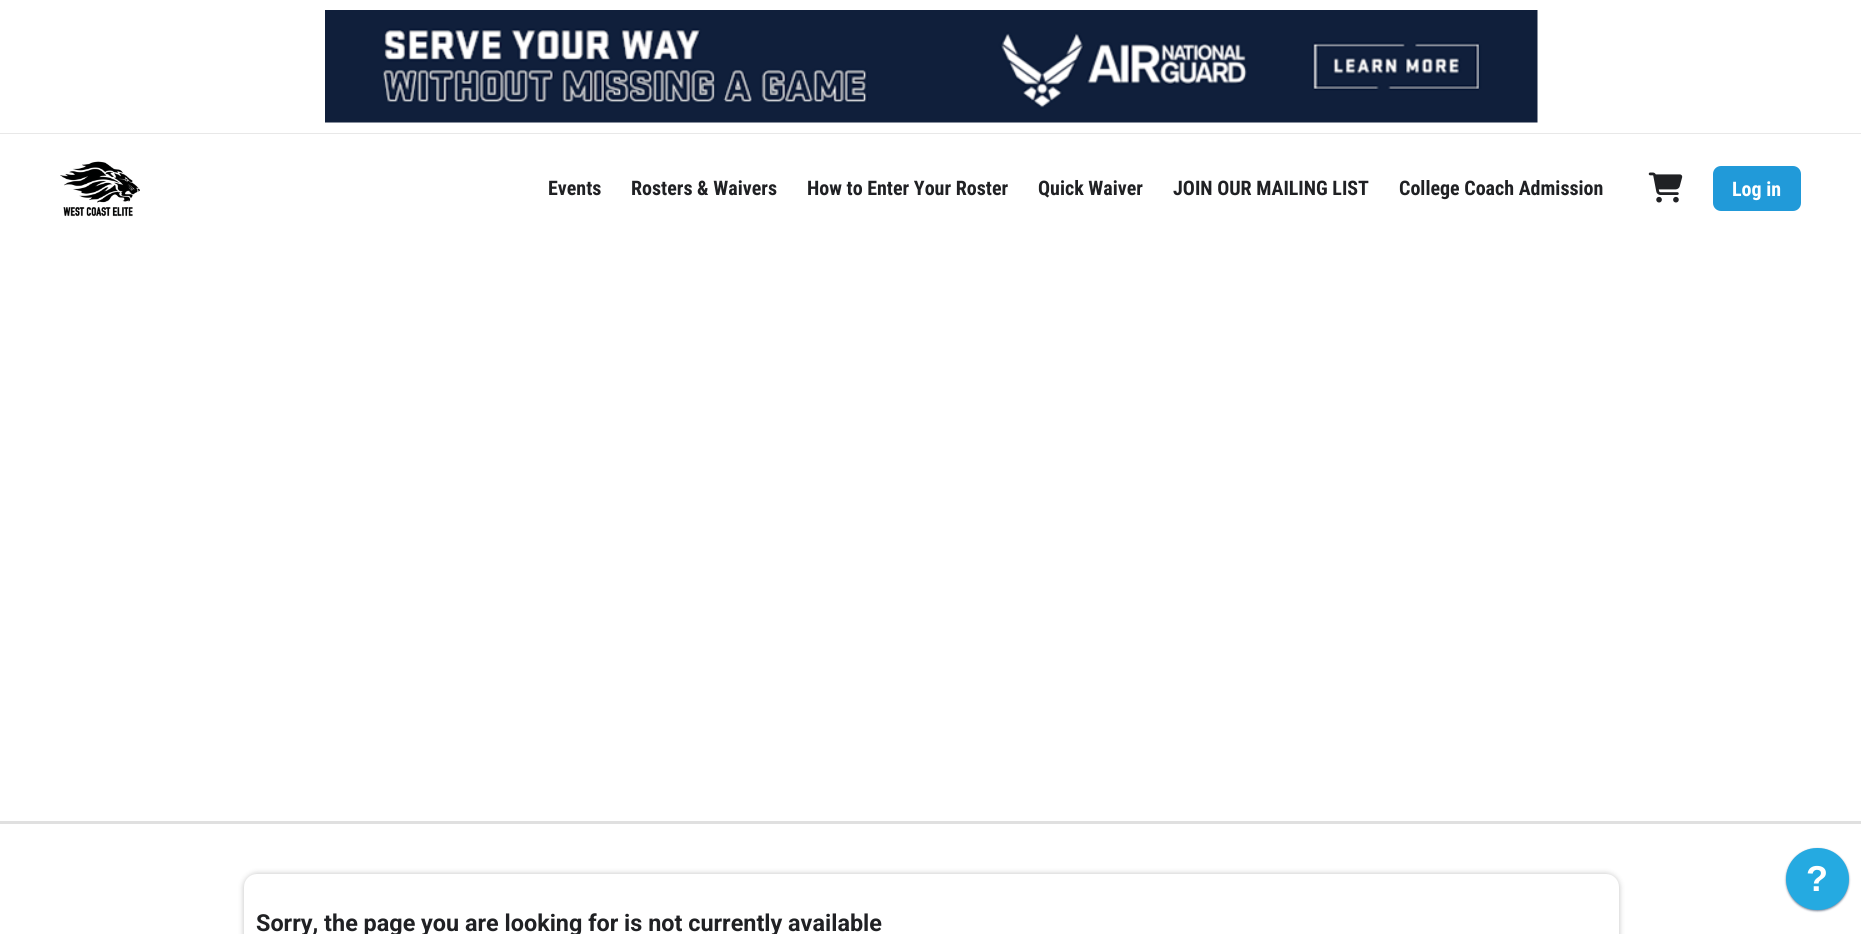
#include <cairo/cairo.h>
#include <math.h>
#include <stddef.h>


static void rounded_rect(cairo_t *cr, double x, double y, double w, double h, double r) {
  cairo_new_sub_path(cr);
  cairo_arc(cr, x + w - r, y + h - r, r, 0, M_PI / 2);
  cairo_arc(cr, x + r, y + h - r, r, M_PI / 2, M_PI);
  cairo_arc(cr, x + r, y + r, r, M_PI, 1.5 * M_PI);
  cairo_arc(cr, x + w - r, y + r, r, 1.5 * M_PI, 2 * M_PI);
  cairo_close_path(cr);
}

static void draw_shadow(cairo_t *cr, double x, double y, double w, double h, double r, double blur, double alpha) {
  cairo_push_group_with_content(cr, CAIRO_CONTENT_ALPHA);
  cairo_set_operator(cr, CAIRO_OPERATOR_SOURCE);
  for (int i = 15; i >= -15 && fmin(w, h) + blur * i / 3 > 0; i -= 2) {
    double e = blur * i / 6;
    cairo_set_source_rgba(cr, 0, 0, 0, alpha * erfc((i - 1) / 8.5) / 2);
    rounded_rect(cr, x - e, y - e, w + 2 * e, h + 2 * e, fmax(0, fmin(r + e + blur * .6, fmin(w, h) / 2 + e)));
    cairo_fill(cr);
  }
  cairo_pattern_t *soft = cairo_pop_group(cr);
  cairo_mask(cr, soft);
  cairo_pattern_destroy(soft);
}

static void draw_image(cairo_t *cr, const char *path, double x, double y, double w, double h) {
  cairo_surface_t *image = cairo_image_surface_create_from_png(path);
  cairo_save(cr);
  cairo_set_source_surface(cr, image, x, y);
  cairo_rectangle(cr, x, y, w, h);
  cairo_fill(cr);
  cairo_restore(cr);
  cairo_surface_destroy(image);
}

static void draw(cairo_t *cr) {
  cairo_set_source_rgb(cr, 1, 1, 1);
  cairo_paint(cr);
  cairo_set_source_rgb(cr, 232 / 255.0, 232 / 255.0, 232 / 255.0);
  cairo_rectangle(cr, 0, 133, 1861, 1);
  cairo_fill(cr);
  draw_image(cr, "images/1.png", 325, 10, 1213, 113);
  draw_image(cr, "images/2.png", 60, 161, 80, 56);
  draw_image(cr, "images/3.png", 1648, 172, 35, 31);
  cairo_set_source_rgb(cr, 33 / 255.0, 154 / 255.0, 217 / 255.0);
  rounded_rect(cr, 1713, 166, 88, 45, 8);
  cairo_fill(cr);
  cairo_set_source_rgb(cr, 224 / 255.0, 224 / 255.0, 224 / 255.0);
  cairo_rectangle(cr, 0, 821, 1861, 3);
  cairo_fill(cr);
  cairo_set_source_rgb(cr, 0, 0, 0);
  draw_shadow(cr, 244, 874, 1375, 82, 13, 3, 0.25);
  cairo_set_source_rgb(cr, 1, 1, 1);
  rounded_rect(cr, 244, 874, 1375, 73, 13);
  cairo_fill(cr);
  cairo_set_source_rgb(cr, 122 / 255.0, 134 / 255.0, 154 / 255.0);
  draw_shadow(cr, 1786, 849, 63, 62, 31, 1, 1);
  cairo_set_source_rgb(cr, 37 / 255.0, 170 / 255.0, 225 / 255.0);
  rounded_rect(cr, 1786, 848, 63, 62, 31);
  cairo_fill(cr);
  cairo_select_font_face(cr, "Roboto Condensed", CAIRO_FONT_SLANT_NORMAL, CAIRO_FONT_WEIGHT_BOLD);
  cairo_set_font_size(cr, 20);
  cairo_set_source_rgb(cr, 32 / 255.0, 33 / 255.0, 36 / 255.0);
  cairo_move_to(cr, 548, 195);
  cairo_show_text(cr, "Events");
  cairo_move_to(cr, 631, 195);
  cairo_show_text(cr, "Rosters & Waivers");
  cairo_move_to(cr, 807, 195);
  cairo_show_text(cr, "How to Enter Your Roster");
  cairo_move_to(cr, 1038, 195);
  cairo_show_text(cr, "Quick Waiver");
  cairo_move_to(cr, 1173, 195);
  cairo_show_text(cr, "JOIN OUR MAILING LIST");
  cairo_move_to(cr, 1399, 195);
  cairo_show_text(cr, "College Coach Admission");
  cairo_set_source_rgb(cr, 1, 1, 1);
  cairo_move_to(cr, 1732, 196);
  cairo_show_text(cr, "Log in");
  cairo_select_font_face(cr, "Roboto", CAIRO_FONT_SLANT_NORMAL, CAIRO_FONT_WEIGHT_BOLD);
  cairo_set_font_size(cr, 23.4);
  cairo_set_source_rgb(cr, 32 / 255.0, 33 / 255.0, 36 / 255.0);
  cairo_move_to(cr, 256, 931);
  cairo_show_text(cr, "Sorry, the page you are looking for is not currently available");
  cairo_select_font_face(cr, "Liberation Sans", CAIRO_FONT_SLANT_NORMAL, CAIRO_FONT_WEIGHT_BOLD);
  cairo_set_font_size(cr, 36);
  cairo_set_source_rgb(cr, 1, 1, 1);
  cairo_move_to(cr, 1806, 891);
  cairo_show_text(cr, "?");
}

int main(void) {
  cairo_surface_t *surface = cairo_image_surface_create(CAIRO_FORMAT_RGB24, 1861, 934);
  cairo_t *cr = cairo_create(surface);
  cairo_font_options_t *options = cairo_font_options_create();
  cairo_font_options_set_hint_metrics(options, CAIRO_HINT_METRICS_OFF);
  cairo_font_options_set_hint_style(options, CAIRO_HINT_STYLE_NONE);
  cairo_set_font_options(cr, options);
  cairo_set_miter_limit(cr, 4);
  draw(cr);
  cairo_surface_write_to_png(surface, "out.png");
  cairo_font_options_destroy(options);
  cairo_destroy(cr);
  cairo_surface_destroy(surface);
  return 0;
}
